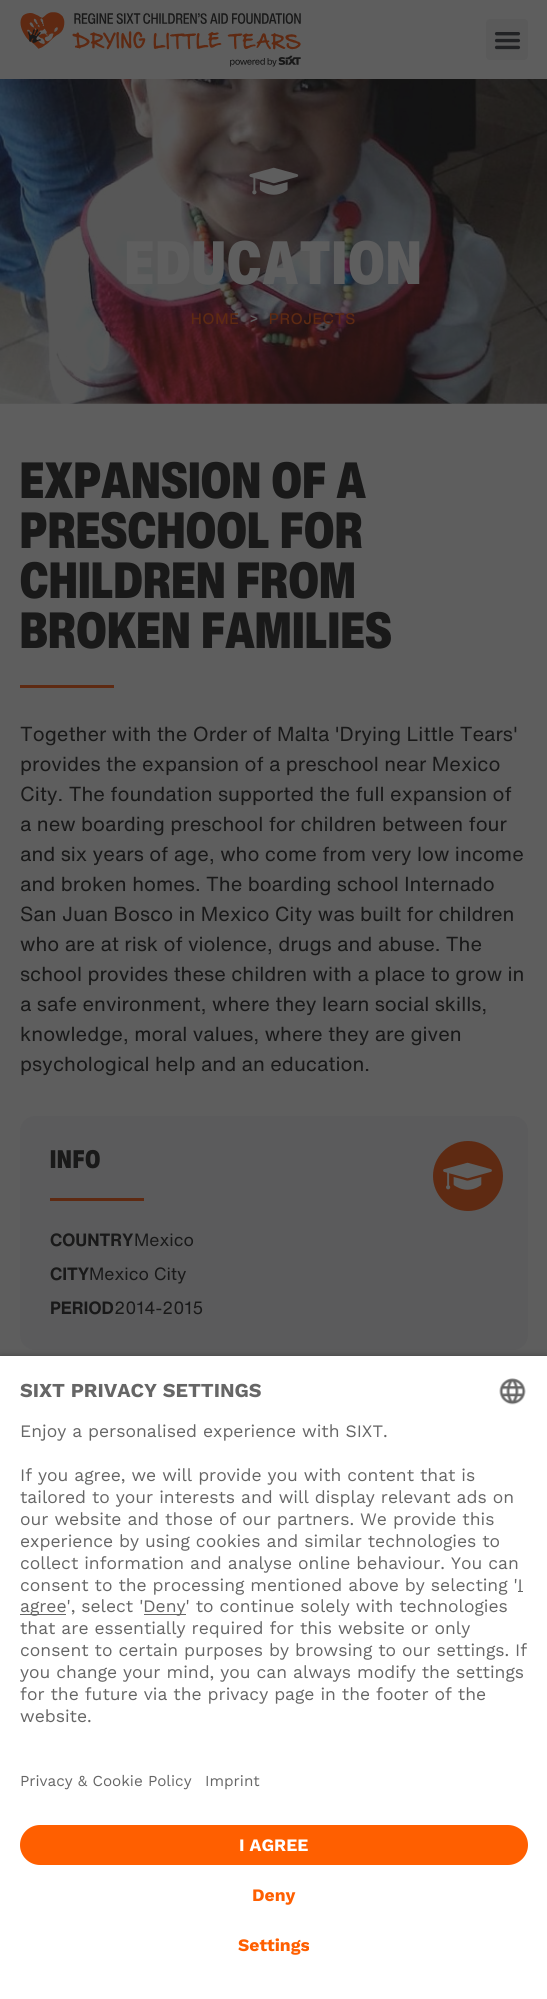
#include <cairo/cairo.h>
#include <math.h>
#include <stddef.h>


static void draw_spaced(cairo_t *cr, double x, double y, const char *s, double letter, double word) {
  cairo_move_to(cr, x, y);
  while (*s) {
    char ch[5] = {0};
    int n = 0;
    do ch[n++] = *s++; while ((*s & 0xC0) == 0x80);
    cairo_show_text(cr, ch);
    cairo_rel_move_to(cr, letter + word * (*ch == ' '), 0);
  }
}

static void rounded_rect(cairo_t *cr, double x, double y, double w, double h, double r) {
  cairo_new_sub_path(cr);
  cairo_arc(cr, x + w - r, y + h - r, r, 0, M_PI / 2);
  cairo_arc(cr, x + r, y + h - r, r, M_PI / 2, M_PI);
  cairo_arc(cr, x + r, y + r, r, M_PI, 1.5 * M_PI);
  cairo_arc(cr, x + w - r, y + r, r, 1.5 * M_PI, 2 * M_PI);
  cairo_close_path(cr);
}

static void draw_shadow(cairo_t *cr, double x, double y, double w, double h, double r, double blur, double alpha) {
  cairo_push_group_with_content(cr, CAIRO_CONTENT_ALPHA);
  cairo_set_operator(cr, CAIRO_OPERATOR_SOURCE);
  for (int i = 15; i >= -15 && fmin(w, h) + blur * i / 3 > 0; i -= 2) {
    double e = blur * i / 6;
    cairo_set_source_rgba(cr, 0, 0, 0, alpha * erfc((i - 1) / 8.5) / 2);
    rounded_rect(cr, x - e, y - e, w + 2 * e, h + 2 * e, fmax(0, fmin(r + e + blur * .6, fmin(w, h) / 2 + e)));
    cairo_fill(cr);
  }
  cairo_pattern_t *soft = cairo_pop_group(cr);
  cairo_mask(cr, soft);
  cairo_pattern_destroy(soft);
}

static void draw_image(cairo_t *cr, const char *path, double x, double y, double w, double h) {
  cairo_surface_t *image = cairo_image_surface_create_from_png(path);
  cairo_save(cr);
  cairo_set_source_surface(cr, image, x, y);
  cairo_rectangle(cr, x, y, w, h);
  cairo_fill(cr);
  cairo_restore(cr);
  cairo_surface_destroy(image);
}

static void draw(cairo_t *cr) {
  cairo_set_source_rgb(cr, 94 / 255.0, 94 / 255.0, 94 / 255.0);
  cairo_paint(cr);
  draw_image(cr, "images/1.png", 20, 12, 281, 55);
  cairo_set_source_rgb(cr, 90 / 255.0, 90 / 255.0, 90 / 255.0);
  rounded_rect(cr, 486, 19, 42, 41, 4);
  cairo_fill(cr);
  draw_image(cr, "images/2.png", 494, 32, 27, 18);
  draw_image(cr, "images/3.png", 0, 79, 547, 325);
  draw_image(cr, "images/4.png", 249, 167, 50, 28);
  cairo_set_source_rgb(cr, 94 / 255.0, 42 / 255.0, 18 / 255.0);
  cairo_rectangle(cr, 20, 685, 94, 3);
  cairo_fill(cr);
  cairo_set_source_rgb(cr, 91 / 255.0, 91 / 255.0, 92 / 255.0);
  rounded_rect(cr, 20, 1116, 508, 234, 15);
  cairo_fill(cr);
  cairo_set_source_rgb(cr, 94 / 255.0, 42 / 255.0, 18 / 255.0);
  cairo_arc(cr, 468, 1176, 35, 0, 2 * M_PI);
  cairo_fill(cr);
  draw_image(cr, "images/5.png", 443, 1162, 49, 28);
  cairo_rectangle(cr, 50, 1198, 94, 3);
  cairo_fill(cr);
  cairo_set_source_rgb(cr, 0, 0, 0);
  draw_shadow(cr, 0, 1360, 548, 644, 0, 4.5, 0.8);
  cairo_set_source_rgb(cr, 1, 1, 1);
  cairo_rectangle(cr, 0, 1356, 547, 643);
  cairo_fill(cr);
  draw_image(cr, "images/6.png", 499, 1378, 27, 27);
  cairo_set_source_rgb(cr, 102 / 255.0, 102 / 255.0, 102 / 255.0);
  cairo_rectangle(cr, 518, 1591, 5, 1);
  cairo_fill(cr);
  cairo_rectangle(cr, 20, 1614, 46, 1);
  cairo_fill(cr);
  cairo_rectangle(cr, 144, 1614, 42, 1);
  cairo_fill(cr);
  cairo_set_source_rgb(cr, 1, 95 / 255.0, 0);
  rounded_rect(cr, 20, 1825, 508, 40, 20);
  cairo_fill(cr);
  cairo_select_font_face(cr, "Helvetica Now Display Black", CAIRO_FONT_SLANT_NORMAL, CAIRO_FONT_WEIGHT_NORMAL);
  cairo_set_font_size(cr, 60);
  cairo_set_source_rgb(cr, 94 / 255.0, 94 / 255.0, 94 / 255.0);
  draw_spaced(cr, 125, 284, "EDUCATION", 1.9, 0);
  cairo_select_font_face(cr, "Helvetica Now Display Medium", CAIRO_FONT_SLANT_NORMAL, CAIRO_FONT_WEIGHT_NORMAL);
  cairo_set_font_size(cr, 15);
  cairo_set_source_rgb(cr, 94 / 255.0, 42 / 255.0, 18 / 255.0);
  draw_spaced(cr, 191, 324, "HOME", 1.25, 0);
  cairo_set_source_rgb(cr, 94 / 255.0, 94 / 255.0, 94 / 255.0);
  draw_spaced(cr, 250, 324, ">", 1.25, 0);
  cairo_set_source_rgb(cr, 94 / 255.0, 42 / 255.0, 18 / 255.0);
  draw_spaced(cr, 269, 324, "PROJECTS", 1.25, 0);
  cairo_select_font_face(cr, "Helvetica Now Display Black", CAIRO_FONT_SLANT_NORMAL, CAIRO_FONT_WEIGHT_NORMAL);
  cairo_set_font_size(cr, 50);
  cairo_set_source_rgb(cr, 25 / 255.0, 25 / 255.0, 25 / 255.0);
  draw_spaced(cr, 20, 498, "EXPANSION OF A", 0.75, 0);
  draw_spaced(cr, 20, 548, "PRESCHOOL FOR", 0.75, 0);
  draw_spaced(cr, 20, 598, "CHILDREN FROM", 0.75, 0);
  draw_spaced(cr, 20, 648, "BROKEN FAMILIES", 0.75, 0);
  cairo_select_font_face(cr, "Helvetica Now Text", CAIRO_FONT_SLANT_NORMAL, CAIRO_FONT_WEIGHT_NORMAL);
  cairo_set_font_size(cr, 20);
  cairo_move_to(cr, 20, 741);
  cairo_show_text(cr, "Together with the Order of Malta 'Drying Little Tears'");
  cairo_move_to(cr, 20, 771);
  cairo_show_text(cr, "provides the expansion of a preschool near Mexico");
  cairo_move_to(cr, 20, 801);
  cairo_show_text(cr, "City. The foundation supported the full expansion of");
  cairo_move_to(cr, 20, 831);
  cairo_show_text(cr, "a new boarding preschool for children between four");
  cairo_move_to(cr, 20, 861);
  cairo_show_text(cr, "and six years of age, who come from very low income");
  cairo_move_to(cr, 20, 891);
  cairo_show_text(cr, "and broken homes. The boarding school Internado");
  cairo_move_to(cr, 20, 921);
  cairo_show_text(cr, "San Juan Bosco in Mexico City was built for children");
  cairo_move_to(cr, 20, 951);
  cairo_show_text(cr, "who are at risk of violence, drugs and abuse. The");
  cairo_move_to(cr, 20, 981);
  cairo_show_text(cr, "school provides these children with a place to grow in");
  cairo_move_to(cr, 20, 1011);
  cairo_show_text(cr, "a safe environment, where they learn social skills,");
  cairo_move_to(cr, 20, 1041);
  cairo_show_text(cr, "knowledge, moral values, where they are given");
  cairo_move_to(cr, 20, 1071);
  cairo_show_text(cr, "psychological help and an education.");
  cairo_select_font_face(cr, "Helvetica Now Display Black", CAIRO_FONT_SLANT_NORMAL, CAIRO_FONT_WEIGHT_NORMAL);
  cairo_set_font_size(cr, 25);
  draw_spaced(cr, 50, 1168, "INFO", 1, 0);
  cairo_select_font_face(cr, "Helvetica Now Text", CAIRO_FONT_SLANT_NORMAL, CAIRO_FONT_WEIGHT_BOLD);
  cairo_set_font_size(cr, 17.5);
  cairo_move_to(cr, 50, 1246);
  cairo_show_text(cr, "COUNTRY");
  cairo_select_font_face(cr, "Helvetica Now Text", CAIRO_FONT_SLANT_NORMAL, CAIRO_FONT_WEIGHT_NORMAL);
  cairo_move_to(cr, 134, 1246);
  cairo_show_text(cr, "Mexico");
  cairo_select_font_face(cr, "Helvetica Now Text", CAIRO_FONT_SLANT_NORMAL, CAIRO_FONT_WEIGHT_BOLD);
  cairo_move_to(cr, 50, 1280);
  cairo_show_text(cr, "CITY");
  cairo_select_font_face(cr, "Helvetica Now Text", CAIRO_FONT_SLANT_NORMAL, CAIRO_FONT_WEIGHT_NORMAL);
  cairo_move_to(cr, 89, 1280);
  cairo_show_text(cr, "Mexico City");
  cairo_select_font_face(cr, "Helvetica Now Text", CAIRO_FONT_SLANT_NORMAL, CAIRO_FONT_WEIGHT_BOLD);
  cairo_move_to(cr, 50, 1314);
  cairo_show_text(cr, "PERIOD");
  cairo_select_font_face(cr, "Helvetica Now Text", CAIRO_FONT_SLANT_NORMAL, CAIRO_FONT_WEIGHT_NORMAL);
  cairo_move_to(cr, 114, 1314);
  cairo_show_text(cr, "2014-2015");
  cairo_select_font_face(cr, "Work Sans", CAIRO_FONT_SLANT_NORMAL, CAIRO_FONT_WEIGHT_BOLD);
  cairo_set_font_size(cr, 19.75);
  cairo_set_source_rgb(cr, 102 / 255.0, 102 / 255.0, 102 / 255.0);
  cairo_move_to(cr, 20, 1397);
  cairo_show_text(cr, "SIXT PRIVACY SETTINGS");
  cairo_select_font_face(cr, "Work Sans", CAIRO_FONT_SLANT_NORMAL, CAIRO_FONT_WEIGHT_NORMAL);
  cairo_set_font_size(cr, 17.5);
  cairo_move_to(cr, 20, 1437);
  cairo_show_text(cr, "Enjoy a personalised experience with SIXT.");
  cairo_move_to(cr, 20, 1481);
  cairo_show_text(cr, "If you agree, we will provide you with content that is");
  cairo_move_to(cr, 20, 1503);
  cairo_show_text(cr, "tailored to your interests and will display relevant ads on");
  cairo_move_to(cr, 20, 1525);
  cairo_show_text(cr, "our website and those of our partners. We provide this");
  cairo_move_to(cr, 20, 1547);
  cairo_show_text(cr, "experience by using cookies and similar technologies to");
  cairo_move_to(cr, 20, 1569);
  cairo_show_text(cr, "collect information and analyse online behaviour. You can");
  cairo_move_to(cr, 20, 1591);
  cairo_show_text(cr, "consent to the processing mentioned above by selecting 'I");
  cairo_move_to(cr, 20, 1612);
  cairo_show_text(cr, "agree', select '");
  cairo_move_to(cr, 143, 1612);
  cairo_show_text(cr, "Deny' to continue solely with technologies");
  cairo_move_to(cr, 20, 1634);
  cairo_show_text(cr, "that are essentially required for this website or only");
  cairo_move_to(cr, 20, 1656);
  cairo_show_text(cr, "consent to certain purposes by browsing to our settings. If");
  cairo_move_to(cr, 20, 1678);
  cairo_show_text(cr, "you change your mind, you can always modify the settings");
  cairo_move_to(cr, 20, 1700);
  cairo_show_text(cr, "for the future via the privacy page in the footer of the");
  cairo_move_to(cr, 20, 1722);
  cairo_show_text(cr, "website.");
  cairo_set_font_size(cr, 15.25);
  cairo_move_to(cr, 20, 1786);
  cairo_show_text(cr, "Privacy & Cookie Policy");
  cairo_move_to(cr, 205, 1786);
  cairo_show_text(cr, "Imprint");
  cairo_select_font_face(cr, "Work Sans", CAIRO_FONT_SLANT_NORMAL, CAIRO_FONT_WEIGHT_BOLD);
  cairo_set_font_size(cr, 17.5);
  cairo_set_source_rgb(cr, 1, 1, 1);
  cairo_move_to(cr, 239, 1851);
  cairo_show_text(cr, "I AGREE");
  cairo_set_source_rgb(cr, 1, 95 / 255.0, 0);
  cairo_move_to(cr, 252, 1901);
  cairo_show_text(cr, "Deny");
  cairo_move_to(cr, 238, 1951);
  cairo_show_text(cr, "Settings");
}

int main(void) {
  cairo_surface_t *surface = cairo_image_surface_create(CAIRO_FORMAT_RGB24, 547, 1999);
  cairo_t *cr = cairo_create(surface);
  cairo_font_options_t *options = cairo_font_options_create();
  cairo_font_options_set_hint_metrics(options, CAIRO_HINT_METRICS_OFF);
  cairo_font_options_set_hint_style(options, CAIRO_HINT_STYLE_NONE);
  cairo_set_font_options(cr, options);
  cairo_set_miter_limit(cr, 4);
  draw(cr);
  cairo_surface_write_to_png(surface, "out.png");
  cairo_font_options_destroy(options);
  cairo_destroy(cr);
  cairo_surface_destroy(surface);
  return 0;
}
